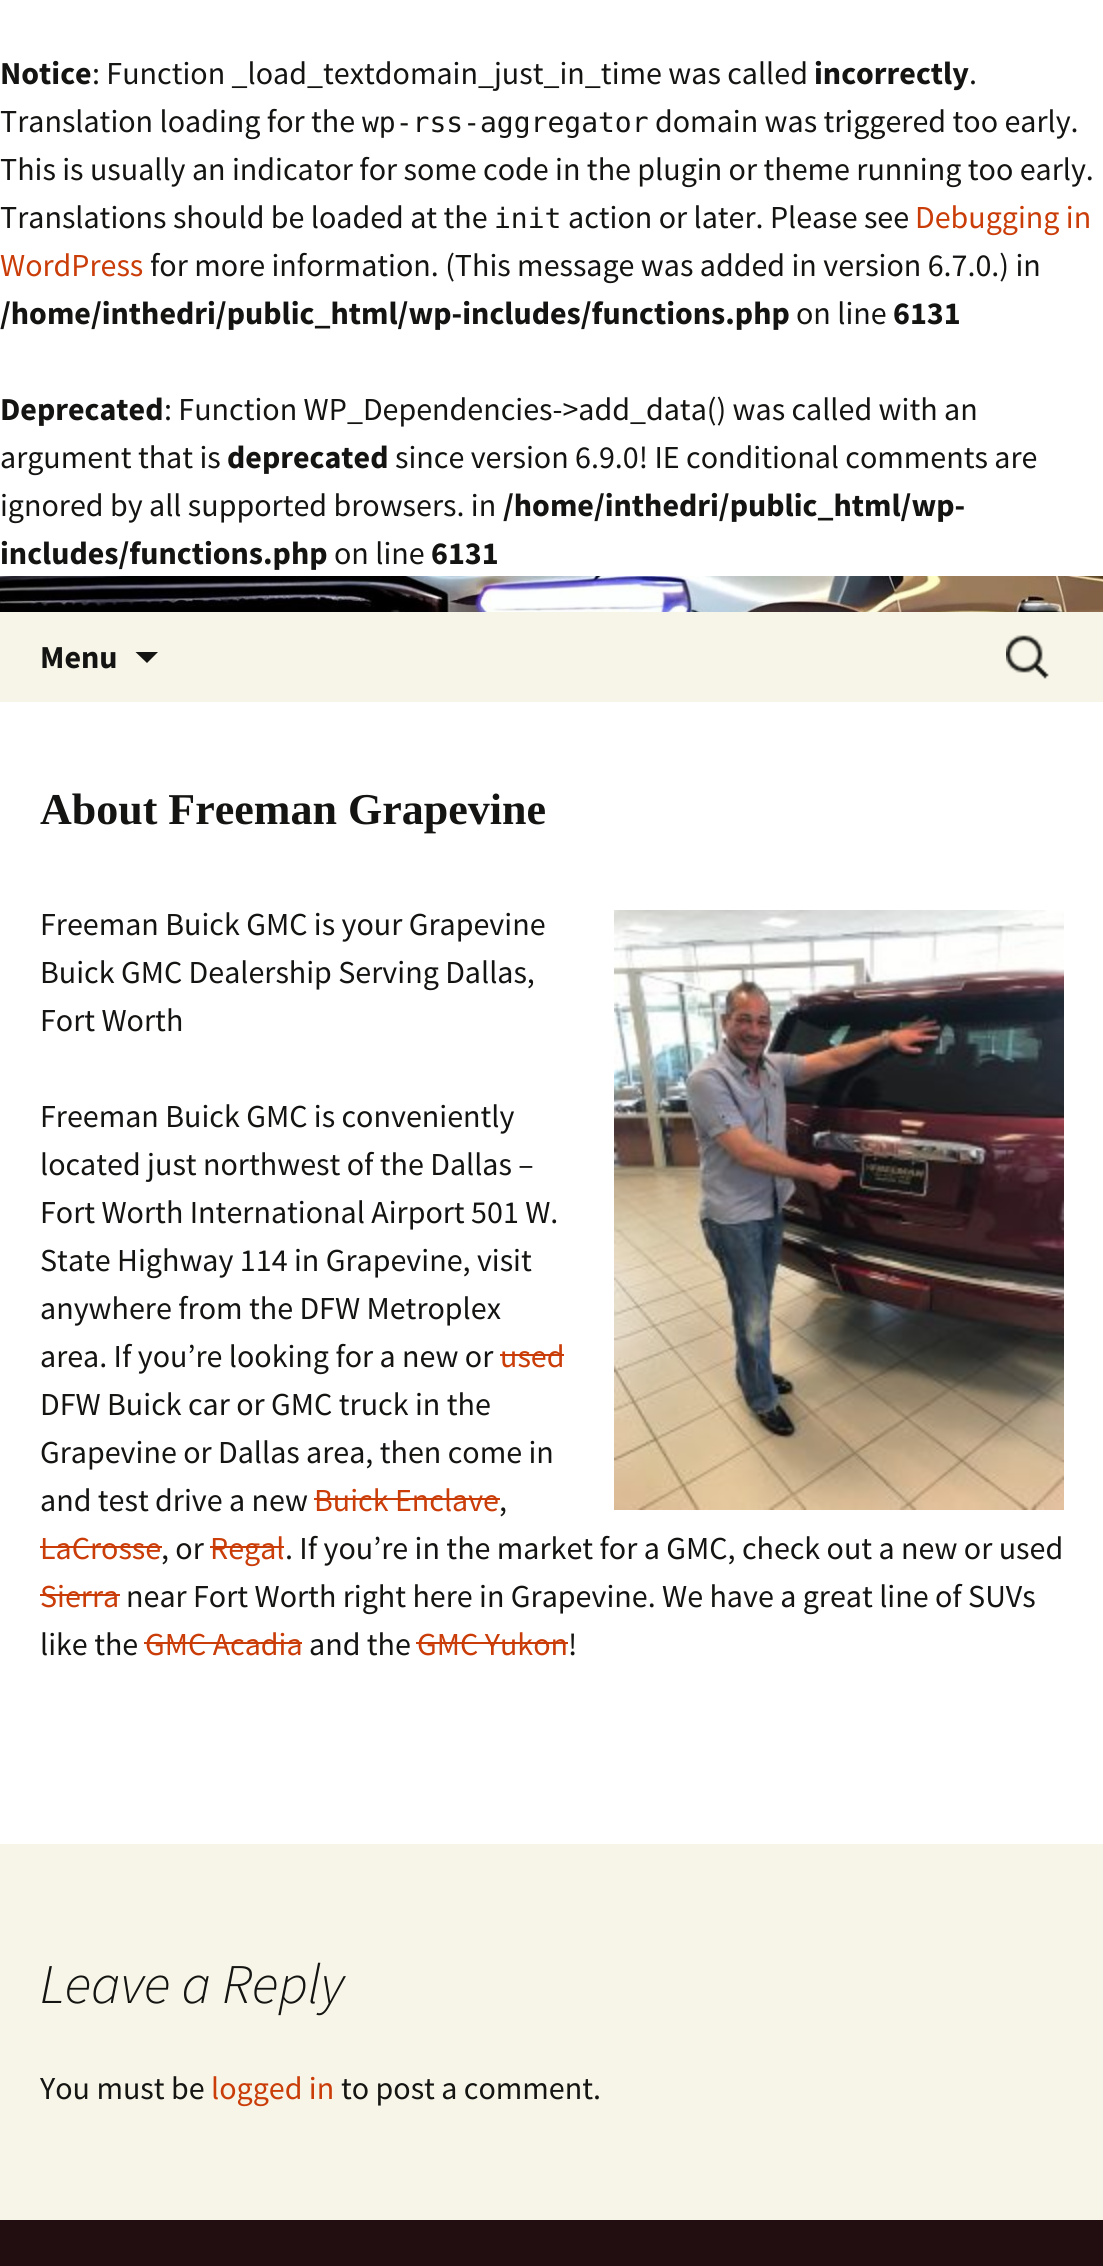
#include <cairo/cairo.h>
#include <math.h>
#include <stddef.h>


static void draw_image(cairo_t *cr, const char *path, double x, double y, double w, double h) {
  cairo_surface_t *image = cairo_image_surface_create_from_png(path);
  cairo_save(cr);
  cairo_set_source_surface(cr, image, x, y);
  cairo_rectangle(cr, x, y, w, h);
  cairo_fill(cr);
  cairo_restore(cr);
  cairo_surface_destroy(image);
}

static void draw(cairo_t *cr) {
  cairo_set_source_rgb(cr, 1, 1, 1);
  cairo_paint(cr);
  draw_image(cr, "images/1.png", 0, 576, 1103, 36);
  cairo_set_source_rgb(cr, 247 / 255.0, 245 / 255.0, 231 / 255.0);
  cairo_rectangle(cr, 0, 612, 1103, 90);
  cairo_fill(cr);
  cairo_set_source_rgb(cr, 20 / 255.0, 20 / 255.0, 18 / 255.0);
  cairo_new_path(cr);
  cairo_move_to(cr, 135.5, 652);
  cairo_line_to(cr, 147, 663);
  cairo_line_to(cr, 158, 652);
  cairo_close_path(cr);
  cairo_fill(cr);
  draw_image(cr, "images/2.png", 1006, 635, 43, 44);
  draw_image(cr, "images/3.png", 614, 910, 450, 600);
  cairo_set_source_rgb(cr, 202 / 255.0, 60 / 255.0, 8 / 255.0);
  cairo_rectangle(cr, 500, 1354, 64, 2);
  cairo_fill(cr);
  cairo_rectangle(cr, 314, 1498, 186, 2);
  cairo_fill(cr);
  cairo_rectangle(cr, 40, 1546, 122, 2);
  cairo_fill(cr);
  cairo_rectangle(cr, 210, 1546, 74, 2);
  cairo_fill(cr);
  cairo_rectangle(cr, 40, 1594, 80, 2);
  cairo_fill(cr);
  cairo_rectangle(cr, 144, 1642, 158, 2);
  cairo_fill(cr);
  cairo_rectangle(cr, 416, 1642, 152, 2);
  cairo_fill(cr);
  cairo_set_source_rgb(cr, 247 / 255.0, 245 / 255.0, 231 / 255.0);
  cairo_rectangle(cr, 0, 1844, 1103, 376);
  cairo_fill(cr);
  cairo_set_source_rgb(cr, 34 / 255.0, 14 / 255.0, 16 / 255.0);
  cairo_rectangle(cr, 0, 2220, 1103, 46);
  cairo_fill(cr);
  cairo_select_font_face(cr, "Source Sans Pro", CAIRO_FONT_SLANT_NORMAL, CAIRO_FONT_WEIGHT_BOLD);
  cairo_set_font_size(cr, 32);
  cairo_set_source_rgb(cr, 20 / 255.0, 20 / 255.0, 18 / 255.0);
  cairo_move_to(cr, 0, 84);
  cairo_show_text(cr, "Notice");
  cairo_select_font_face(cr, "Source Sans Pro", CAIRO_FONT_SLANT_NORMAL, CAIRO_FONT_WEIGHT_NORMAL);
  cairo_move_to(cr, 92, 84);
  cairo_show_text(cr, ": Function _load_textdomain_just_in_time was called");
  cairo_select_font_face(cr, "Source Sans Pro", CAIRO_FONT_SLANT_NORMAL, CAIRO_FONT_WEIGHT_BOLD);
  cairo_move_to(cr, 814, 84);
  cairo_show_text(cr, "incorrectly");
  cairo_select_font_face(cr, "Source Sans Pro", CAIRO_FONT_SLANT_NORMAL, CAIRO_FONT_WEIGHT_NORMAL);
  cairo_move_to(cr, 969, 84);
  cairo_show_text(cr, ".");
  cairo_move_to(cr, 0, 132);
  cairo_show_text(cr, "Translation loading for the");
  cairo_select_font_face(cr, "DejaVu Sans Mono", CAIRO_FONT_SLANT_NORMAL, CAIRO_FONT_WEIGHT_NORMAL);
  cairo_set_font_size(cr, 28);
  cairo_move_to(cr, 362, 132);
  cairo_show_text(cr, "wp-rss-aggregator");
  cairo_select_font_face(cr, "Source Sans Pro", CAIRO_FONT_SLANT_NORMAL, CAIRO_FONT_WEIGHT_NORMAL);
  cairo_set_font_size(cr, 32);
  cairo_move_to(cr, 655, 132);
  cairo_show_text(cr, "domain was triggered too early.");
  cairo_move_to(cr, 0, 180);
  cairo_show_text(cr, "This is usually an indicator for some code in the plugin or theme running too early.");
  cairo_move_to(cr, 0, 228);
  cairo_show_text(cr, "Translations should be loaded at the");
  cairo_select_font_face(cr, "DejaVu Sans Mono", CAIRO_FONT_SLANT_NORMAL, CAIRO_FONT_WEIGHT_NORMAL);
  cairo_set_font_size(cr, 28);
  cairo_move_to(cr, 494, 228);
  cairo_show_text(cr, "init");
  cairo_select_font_face(cr, "Source Sans Pro", CAIRO_FONT_SLANT_NORMAL, CAIRO_FONT_WEIGHT_NORMAL);
  cairo_set_font_size(cr, 32);
  cairo_move_to(cr, 568, 228);
  cairo_show_text(cr, "action or later. Please see");
  cairo_set_source_rgb(cr, 202 / 255.0, 60 / 255.0, 8 / 255.0);
  cairo_move_to(cr, 915, 228);
  cairo_show_text(cr, "Debugging in");
  cairo_move_to(cr, 0, 276);
  cairo_show_text(cr, "WordPress");
  cairo_set_source_rgb(cr, 20 / 255.0, 20 / 255.0, 18 / 255.0);
  cairo_move_to(cr, 150, 276);
  cairo_show_text(cr, "for more information. (This message was added in version 6.7.0.) in");
  cairo_select_font_face(cr, "Source Sans Pro", CAIRO_FONT_SLANT_NORMAL, CAIRO_FONT_WEIGHT_BOLD);
  cairo_move_to(cr, 0, 324);
  cairo_show_text(cr, "/home/inthedri/public_html/wp-includes/functions.php");
  cairo_select_font_face(cr, "Source Sans Pro", CAIRO_FONT_SLANT_NORMAL, CAIRO_FONT_WEIGHT_NORMAL);
  cairo_move_to(cr, 796, 324);
  cairo_show_text(cr, "on line");
  cairo_select_font_face(cr, "Source Sans Pro", CAIRO_FONT_SLANT_NORMAL, CAIRO_FONT_WEIGHT_BOLD);
  cairo_move_to(cr, 893, 324);
  cairo_show_text(cr, "6131");
  cairo_move_to(cr, 0, 420);
  cairo_show_text(cr, "Deprecated");
  cairo_select_font_face(cr, "Source Sans Pro", CAIRO_FONT_SLANT_NORMAL, CAIRO_FONT_WEIGHT_NORMAL);
  cairo_move_to(cr, 164, 420);
  cairo_show_text(cr, ": Function WP_Dependencies->add_data() was called with an");
  cairo_move_to(cr, 0, 468);
  cairo_show_text(cr, "argument that is");
  cairo_select_font_face(cr, "Source Sans Pro", CAIRO_FONT_SLANT_NORMAL, CAIRO_FONT_WEIGHT_BOLD);
  cairo_move_to(cr, 227, 468);
  cairo_show_text(cr, "deprecated");
  cairo_select_font_face(cr, "Source Sans Pro", CAIRO_FONT_SLANT_NORMAL, CAIRO_FONT_WEIGHT_NORMAL);
  cairo_move_to(cr, 395, 468);
  cairo_show_text(cr, "since version 6.9.0! IE conditional comments are");
  cairo_move_to(cr, 0, 516);
  cairo_show_text(cr, "ignored by all supported browsers. in");
  cairo_select_font_face(cr, "Source Sans Pro", CAIRO_FONT_SLANT_NORMAL, CAIRO_FONT_WEIGHT_BOLD);
  cairo_move_to(cr, 503, 516);
  cairo_show_text(cr, "/home/inthedri/public_html/wp-");
  cairo_move_to(cr, 0, 564);
  cairo_show_text(cr, "includes/functions.php");
  cairo_select_font_face(cr, "Source Sans Pro", CAIRO_FONT_SLANT_NORMAL, CAIRO_FONT_WEIGHT_NORMAL);
  cairo_move_to(cr, 334, 564);
  cairo_show_text(cr, "on line");
  cairo_select_font_face(cr, "Source Sans Pro", CAIRO_FONT_SLANT_NORMAL, CAIRO_FONT_WEIGHT_BOLD);
  cairo_move_to(cr, 431, 564);
  cairo_show_text(cr, "6131");
  cairo_move_to(cr, 40, 668);
  cairo_show_text(cr, "Menu");
  cairo_select_font_face(cr, "Liberation Serif", CAIRO_FONT_SLANT_NORMAL, CAIRO_FONT_WEIGHT_BOLD);
  cairo_set_font_size(cr, 44);
  cairo_move_to(cr, 40, 824);
  cairo_show_text(cr, "About Freeman Grapevine");
  cairo_select_font_face(cr, "Source Sans Pro", CAIRO_FONT_SLANT_NORMAL, CAIRO_FONT_WEIGHT_NORMAL);
  cairo_set_font_size(cr, 32);
  cairo_move_to(cr, 40, 935);
  cairo_show_text(cr, "Freeman Buick GMC is your Grapevine");
  cairo_move_to(cr, 40, 983);
  cairo_show_text(cr, "Buick GMC Dealership Serving Dallas,");
  cairo_move_to(cr, 40, 1031);
  cairo_show_text(cr, "Fort Worth");
  cairo_move_to(cr, 40, 1127);
  cairo_show_text(cr, "Freeman Buick GMC is conveniently");
  cairo_move_to(cr, 40, 1175);
  cairo_show_text(cr, "located just northwest of the Dallas –");
  cairo_move_to(cr, 40, 1223);
  cairo_show_text(cr, "Fort Worth International Airport 501 W.");
  cairo_move_to(cr, 40, 1271);
  cairo_show_text(cr, "State Highway 114 in Grapevine, visit");
  cairo_move_to(cr, 40, 1319);
  cairo_show_text(cr, "anywhere from the DFW Metroplex");
  cairo_move_to(cr, 40, 1367);
  cairo_show_text(cr, "area. If you’re looking for a new or");
  cairo_set_source_rgb(cr, 202 / 255.0, 60 / 255.0, 8 / 255.0);
  cairo_move_to(cr, 500, 1367);
  cairo_show_text(cr, "used");
  cairo_set_source_rgb(cr, 20 / 255.0, 20 / 255.0, 18 / 255.0);
  cairo_move_to(cr, 40, 1415);
  cairo_show_text(cr, "DFW Buick car or GMC truck in the");
  cairo_move_to(cr, 40, 1463);
  cairo_show_text(cr, "Grapevine or Dallas area, then come in");
  cairo_move_to(cr, 40, 1511);
  cairo_show_text(cr, "and test drive a new");
  cairo_set_source_rgb(cr, 202 / 255.0, 60 / 255.0, 8 / 255.0);
  cairo_move_to(cr, 314, 1511);
  cairo_show_text(cr, "Buick Enclave");
  cairo_set_source_rgb(cr, 20 / 255.0, 20 / 255.0, 18 / 255.0);
  cairo_move_to(cr, 499, 1511);
  cairo_show_text(cr, ",");
  cairo_set_source_rgb(cr, 202 / 255.0, 60 / 255.0, 8 / 255.0);
  cairo_move_to(cr, 40, 1559);
  cairo_show_text(cr, "LaCrosse");
  cairo_set_source_rgb(cr, 20 / 255.0, 20 / 255.0, 18 / 255.0);
  cairo_move_to(cr, 161, 1559);
  cairo_show_text(cr, ", or");
  cairo_set_source_rgb(cr, 202 / 255.0, 60 / 255.0, 8 / 255.0);
  cairo_move_to(cr, 210, 1559);
  cairo_show_text(cr, "Regal");
  cairo_set_source_rgb(cr, 20 / 255.0, 20 / 255.0, 18 / 255.0);
  cairo_move_to(cr, 285, 1559);
  cairo_show_text(cr, ". If you’re in the market for a GMC, check out a new or used");
  cairo_set_source_rgb(cr, 202 / 255.0, 60 / 255.0, 8 / 255.0);
  cairo_move_to(cr, 40, 1607);
  cairo_show_text(cr, "Sierra");
  cairo_set_source_rgb(cr, 20 / 255.0, 20 / 255.0, 18 / 255.0);
  cairo_move_to(cr, 126, 1607);
  cairo_show_text(cr, "near Fort Worth right here in Grapevine. We have a great line of SUVs");
  cairo_move_to(cr, 40, 1655);
  cairo_show_text(cr, "like the");
  cairo_set_source_rgb(cr, 202 / 255.0, 60 / 255.0, 8 / 255.0);
  cairo_move_to(cr, 145, 1655);
  cairo_show_text(cr, "GMC Acadia");
  cairo_set_source_rgb(cr, 20 / 255.0, 20 / 255.0, 18 / 255.0);
  cairo_move_to(cr, 309, 1655);
  cairo_show_text(cr, "and the");
  cairo_set_source_rgb(cr, 202 / 255.0, 60 / 255.0, 8 / 255.0);
  cairo_move_to(cr, 417, 1655);
  cairo_show_text(cr, "GMC Yukon");
  cairo_set_source_rgb(cr, 20 / 255.0, 20 / 255.0, 18 / 255.0);
  cairo_move_to(cr, 568, 1655);
  cairo_show_text(cr, "!");
  cairo_select_font_face(cr, "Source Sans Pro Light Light", CAIRO_FONT_SLANT_ITALIC, CAIRO_FONT_WEIGHT_NORMAL);
  cairo_set_font_size(cr, 56);
  cairo_move_to(cr, 40, 2003);
  cairo_show_text(cr, "Leave a Reply");
  cairo_select_font_face(cr, "Source Sans Pro", CAIRO_FONT_SLANT_NORMAL, CAIRO_FONT_WEIGHT_NORMAL);
  cairo_set_font_size(cr, 32);
  cairo_move_to(cr, 40, 2099);
  cairo_show_text(cr, "You must be");
  cairo_set_source_rgb(cr, 202 / 255.0, 60 / 255.0, 8 / 255.0);
  cairo_move_to(cr, 211, 2099);
  cairo_show_text(cr, "logged in");
  cairo_set_source_rgb(cr, 20 / 255.0, 20 / 255.0, 18 / 255.0);
  cairo_move_to(cr, 341, 2099);
  cairo_show_text(cr, "to post a comment.");
}

int main(void) {
  cairo_surface_t *surface = cairo_image_surface_create(CAIRO_FORMAT_RGB24, 1103, 2266);
  cairo_t *cr = cairo_create(surface);
  cairo_font_options_t *options = cairo_font_options_create();
  cairo_font_options_set_hint_metrics(options, CAIRO_HINT_METRICS_OFF);
  cairo_font_options_set_hint_style(options, CAIRO_HINT_STYLE_NONE);
  cairo_set_font_options(cr, options);
  cairo_set_miter_limit(cr, 4);
  draw(cr);
  cairo_surface_write_to_png(surface, "out.png");
  cairo_font_options_destroy(options);
  cairo_destroy(cr);
  cairo_surface_destroy(surface);
  return 0;
}
